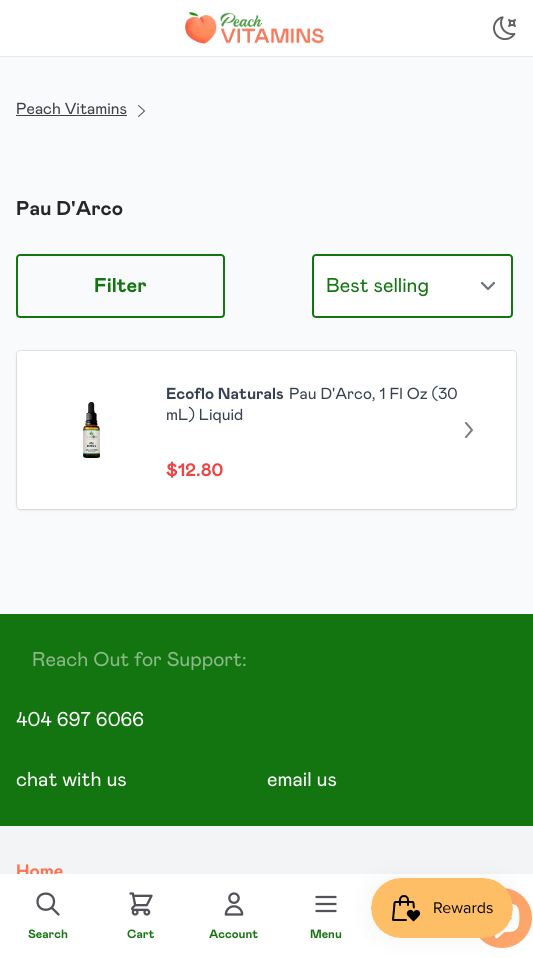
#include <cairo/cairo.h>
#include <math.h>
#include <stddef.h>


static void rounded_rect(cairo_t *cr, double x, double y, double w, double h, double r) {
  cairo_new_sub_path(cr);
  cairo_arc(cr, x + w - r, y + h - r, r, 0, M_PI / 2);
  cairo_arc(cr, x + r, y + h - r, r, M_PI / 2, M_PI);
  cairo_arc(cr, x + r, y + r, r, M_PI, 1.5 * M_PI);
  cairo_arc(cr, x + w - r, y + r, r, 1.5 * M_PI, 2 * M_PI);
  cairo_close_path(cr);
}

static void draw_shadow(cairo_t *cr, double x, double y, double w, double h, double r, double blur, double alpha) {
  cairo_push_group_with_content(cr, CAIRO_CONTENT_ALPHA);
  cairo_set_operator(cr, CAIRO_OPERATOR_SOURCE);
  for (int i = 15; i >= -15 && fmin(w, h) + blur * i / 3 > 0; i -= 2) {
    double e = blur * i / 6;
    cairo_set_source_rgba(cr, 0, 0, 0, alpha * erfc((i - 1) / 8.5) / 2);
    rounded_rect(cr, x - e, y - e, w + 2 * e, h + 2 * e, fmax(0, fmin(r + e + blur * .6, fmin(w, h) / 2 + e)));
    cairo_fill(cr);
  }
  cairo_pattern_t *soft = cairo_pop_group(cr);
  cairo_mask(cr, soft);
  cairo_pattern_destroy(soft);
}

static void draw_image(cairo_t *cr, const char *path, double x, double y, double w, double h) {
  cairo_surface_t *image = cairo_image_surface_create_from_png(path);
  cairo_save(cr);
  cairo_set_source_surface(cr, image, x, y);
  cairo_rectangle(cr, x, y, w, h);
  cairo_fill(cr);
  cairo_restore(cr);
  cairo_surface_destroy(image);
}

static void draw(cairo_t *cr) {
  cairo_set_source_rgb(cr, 249 / 255.0, 250 / 255.0, 251 / 255.0);
  cairo_paint(cr);
  cairo_set_source_rgb(cr, 1, 1, 1);
  cairo_rectangle(cr, 0, 0, 533, 56);
  cairo_fill(cr);
  cairo_set_source_rgb(cr, 229 / 255.0, 231 / 255.0, 235 / 255.0);
  cairo_rectangle(cr, 0, 56, 533, 1);
  cairo_fill(cr);
  draw_image(cr, "images/1.png", 185, 12, 139, 32);
  draw_image(cr, "images/2.png", 493, 16, 23, 24);
  cairo_set_source_rgb(cr, 63 / 255.0, 63 / 255.0, 70 / 255.0);
  cairo_rectangle(cr, 16, 115, 111, 1);
  cairo_fill(cr);
  cairo_new_path(cr);
  cairo_move_to(cr, 138.5, 105.5);
  cairo_line_to(cr, 144.5, 111);
  cairo_line_to(cr, 138.5, 116.5);
  cairo_set_source_rgb(cr, 82 / 255.0, 82 / 255.0, 91 / 255.0);
  cairo_set_line_width(cr, 1);
  cairo_set_line_cap(cr, CAIRO_LINE_CAP_ROUND);
  cairo_set_line_join(cr, CAIRO_LINE_JOIN_ROUND);
  cairo_stroke(cr);
  rounded_rect(cr, 17, 255, 207, 62, 3);
  cairo_set_source_rgb(cr, 19 / 255.0, 117 / 255.0, 16 / 255.0);
  cairo_set_line_width(cr, 2);
  cairo_set_line_cap(cr, CAIRO_LINE_CAP_BUTT);
  cairo_set_line_join(cr, CAIRO_LINE_JOIN_MITER);
  cairo_stroke(cr);
  cairo_set_source_rgb(cr, 1, 1, 1);
  rounded_rect(cr, 312, 254, 201, 64, 4);
  cairo_fill(cr);
  cairo_new_path(cr);
  cairo_move_to(cr, 482, 283);
  cairo_line_to(cr, 488, 289);
  cairo_line_to(cr, 494, 283);
  cairo_set_source_rgb(cr, 107 / 255.0, 114 / 255.0, 128 / 255.0);
  cairo_set_line_width(cr, 2.2);
  cairo_set_line_cap(cr, CAIRO_LINE_CAP_ROUND);
  cairo_set_line_join(cr, CAIRO_LINE_JOIN_ROUND);
  cairo_stroke(cr);
  rounded_rect(cr, 313, 255, 199, 62, 3);
  cairo_set_source_rgb(cr, 19 / 255.0, 117 / 255.0, 16 / 255.0);
  cairo_set_line_width(cr, 2);
  cairo_set_line_cap(cr, CAIRO_LINE_CAP_BUTT);
  cairo_set_line_join(cr, CAIRO_LINE_JOIN_MITER);
  cairo_stroke(cr);
  cairo_set_source_rgb(cr, 1, 1, 1);
  rounded_rect(cr, 16.5, 350.5, 500, 159, 3.5);
  cairo_fill_preserve(cr);
  cairo_set_source_rgb(cr, 229 / 255.0, 231 / 255.0, 235 / 255.0);
  cairo_set_line_width(cr, 1);
  cairo_stroke(cr);
  draw_image(cr, "images/3.png", 83, 402, 17, 56);
  draw_image(cr, "images/4.png", 464, 422, 9, 16);
  cairo_save(cr);
  cairo_set_fill_rule(cr, CAIRO_FILL_RULE_EVEN_ODD);
  cairo_new_path(cr);
  cairo_move_to(cr, 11, 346);
  cairo_line_to(cr, 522, 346);
  cairo_line_to(cr, 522, 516);
  cairo_line_to(cr, 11, 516);
  cairo_close_path(cr);
  cairo_move_to(cr, 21, 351);
  cairo_line_to(cr, 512, 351);
  cairo_curve_to(cr, 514, 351, 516, 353, 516, 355);
  cairo_line_to(cr, 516, 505);
  cairo_curve_to(cr, 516, 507, 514, 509, 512, 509);
  cairo_line_to(cr, 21, 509);
  cairo_curve_to(cr, 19, 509, 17, 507, 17, 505);
  cairo_line_to(cr, 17, 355);
  cairo_curve_to(cr, 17, 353, 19, 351, 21, 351);
  cairo_close_path(cr);
  cairo_clip(cr);
  cairo_set_source_rgb(cr, 0, 0, 0);
  draw_shadow(cr, 17, 352, 499, 158, 4, 1.5, 0.1);
  cairo_restore(cr);
  cairo_set_source_rgb(cr, 19 / 255.0, 117 / 255.0, 16 / 255.0);
  cairo_rectangle(cr, 0, 614, 533, 212);
  cairo_fill(cr);
  cairo_set_source_rgb(cr, 243 / 255.0, 244 / 255.0, 246 / 255.0);
  cairo_rectangle(cr, 0, 826, 533, 48);
  cairo_fill(cr);
  cairo_select_font_face(cr, "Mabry", CAIRO_FONT_SLANT_NORMAL, CAIRO_FONT_WEIGHT_NORMAL);
  cairo_set_font_size(cr, 16);
  cairo_set_source_rgb(cr, 63 / 255.0, 63 / 255.0, 70 / 255.0);
  cairo_move_to(cr, 16, 114);
  cairo_show_text(cr, "Peach Vitamins");
  cairo_select_font_face(cr, "Mabry", CAIRO_FONT_SLANT_NORMAL, CAIRO_FONT_WEIGHT_BOLD);
  cairo_set_font_size(cr, 20);
  cairo_set_source_rgb(cr, 39 / 255.0, 39 / 255.0, 42 / 255.0);
  cairo_move_to(cr, 16, 215);
  cairo_show_text(cr, "Pau D'Arco");
  cairo_set_source_rgb(cr, 19 / 255.0, 117 / 255.0, 16 / 255.0);
  cairo_move_to(cr, 94, 292);
  cairo_show_text(cr, "Filter");
  cairo_select_font_face(cr, "Mabry", CAIRO_FONT_SLANT_NORMAL, CAIRO_FONT_WEIGHT_NORMAL);
  cairo_move_to(cr, 326, 292);
  cairo_show_text(cr, "Best selling");
  cairo_select_font_face(cr, "Mabry", CAIRO_FONT_SLANT_NORMAL, CAIRO_FONT_WEIGHT_BOLD);
  cairo_set_font_size(cr, 16);
  cairo_set_source_rgb(cr, 55 / 255.0, 65 / 255.0, 81 / 255.0);
  cairo_move_to(cr, 166, 399);
  cairo_show_text(cr, "Ecoflo Naturals");
  cairo_select_font_face(cr, "Mabry", CAIRO_FONT_SLANT_NORMAL, CAIRO_FONT_WEIGHT_NORMAL);
  cairo_move_to(cr, 289, 399);
  cairo_show_text(cr, "Pau D'Arco, 1 Fl Oz (30");
  cairo_move_to(cr, 166, 420);
  cairo_show_text(cr, "mL) Liquid");
  cairo_select_font_face(cr, "Mabry", CAIRO_FONT_SLANT_NORMAL, CAIRO_FONT_WEIGHT_BOLD);
  cairo_set_font_size(cr, 18);
  cairo_set_source_rgb(cr, 239 / 255.0, 68 / 255.0, 68 / 255.0);
  cairo_move_to(cr, 166, 476);
  cairo_show_text(cr, "$12.80");
  cairo_select_font_face(cr, "Mabry", CAIRO_FONT_SLANT_NORMAL, CAIRO_FONT_WEIGHT_NORMAL);
  cairo_set_font_size(cr, 20);
  cairo_set_source_rgb(cr, 137 / 255.0, 186 / 255.0, 136 / 255.0);
  cairo_move_to(cr, 32, 666);
  cairo_show_text(cr, "Reach Out for Support:");
  cairo_set_source_rgb(cr, 1, 1, 1);
  cairo_move_to(cr, 16, 726);
  cairo_show_text(cr, "404 697 6066");
  cairo_move_to(cr, 16, 786);
  cairo_show_text(cr, "chat with us");
  cairo_move_to(cr, 267, 786);
  cairo_show_text(cr, "email us");
  cairo_select_font_face(cr, "Mabry", CAIRO_FONT_SLANT_NORMAL, CAIRO_FONT_WEIGHT_BOLD);
  cairo_set_font_size(cr, 18);
  cairo_set_source_rgb(cr, 1, 113 / 255.0, 80 / 255.0);
  cairo_move_to(cr, 16, 877);
  cairo_show_text(cr, "Home");
  cairo_set_source_rgb(cr, 1, 1, 1);
  cairo_rectangle(cr, 0, 874, 533, 84);
  cairo_fill(cr);
  cairo_new_path(cr);
  cairo_move_to(cr, 58.5, 914.5);
  cairo_line_to(cr, 51.5, 907.5);
  cairo_move_to(cr, 54, 901.5);
  cairo_curve_to(cr, 54, 912.5, 37.5, 912.5, 37.5, 901.5);
  cairo_curve_to(cr, 37.5, 891, 54, 891, 54, 901.5);
  cairo_close_path(cr);
  cairo_set_source_rgb(cr, 82 / 255.0, 82 / 255.0, 91 / 255.0);
  cairo_set_line_width(cr, 2.3);
  cairo_set_line_cap(cr, CAIRO_LINE_CAP_ROUND);
  cairo_set_line_join(cr, CAIRO_LINE_JOIN_ROUND);
  cairo_stroke(cr);
  cairo_set_font_size(cr, 12);
  cairo_set_source_rgb(cr, 19 / 255.0, 117 / 255.0, 16 / 255.0);
  cairo_move_to(cr, 28, 938);
  cairo_show_text(cr, "Search");
  draw_image(cr, "images/5.png", 129, 892, 24, 24);
  cairo_move_to(cr, 127, 938);
  cairo_show_text(cr, "Cart");
  draw_image(cr, "images/6.png", 224, 892, 20, 24);
  cairo_move_to(cr, 209, 938);
  cairo_show_text(cr, "Account");
  cairo_new_path(cr);
  cairo_move_to(cr, 316.5, 897);
  cairo_line_to(cr, 335.5, 897);
  cairo_move_to(cr, 316.5, 904);
  cairo_line_to(cr, 335.5, 904);
  cairo_move_to(cr, 316.5, 911);
  cairo_line_to(cr, 335.5, 911);
  cairo_set_source_rgb(cr, 82 / 255.0, 82 / 255.0, 91 / 255.0);
  cairo_stroke(cr);
  cairo_set_source_rgb(cr, 19 / 255.0, 117 / 255.0, 16 / 255.0);
  cairo_move_to(cr, 310, 938);
  cairo_show_text(cr, "Menu");
  cairo_set_source_rgb(cr, 1, 166 / 255.0, 106 / 255.0);
  cairo_new_path(cr);
  cairo_arc(cr, 502, 918, 30, 0, 2 * M_PI);
  cairo_fill(cr);
  draw_image(cr, "images/8.png", 494, 904, 26, 35);
  cairo_set_source_rgb(cr, 0, 0, 0);
  draw_shadow(cr, 371, 878, 142, 60, 30, 12.5, 0.05);
  draw_image(cr, "images/7.png", 371, 878, 142, 60);
}

int main(void) {
  cairo_surface_t *surface = cairo_image_surface_create(CAIRO_FORMAT_RGB24, 533, 958);
  cairo_t *cr = cairo_create(surface);
  cairo_font_options_t *options = cairo_font_options_create();
  cairo_font_options_set_hint_metrics(options, CAIRO_HINT_METRICS_OFF);
  cairo_font_options_set_hint_style(options, CAIRO_HINT_STYLE_NONE);
  cairo_set_font_options(cr, options);
  cairo_set_miter_limit(cr, 4);
  draw(cr);
  cairo_surface_write_to_png(surface, "out.png");
  cairo_font_options_destroy(options);
  cairo_destroy(cr);
  cairo_surface_destroy(surface);
  return 0;
}
